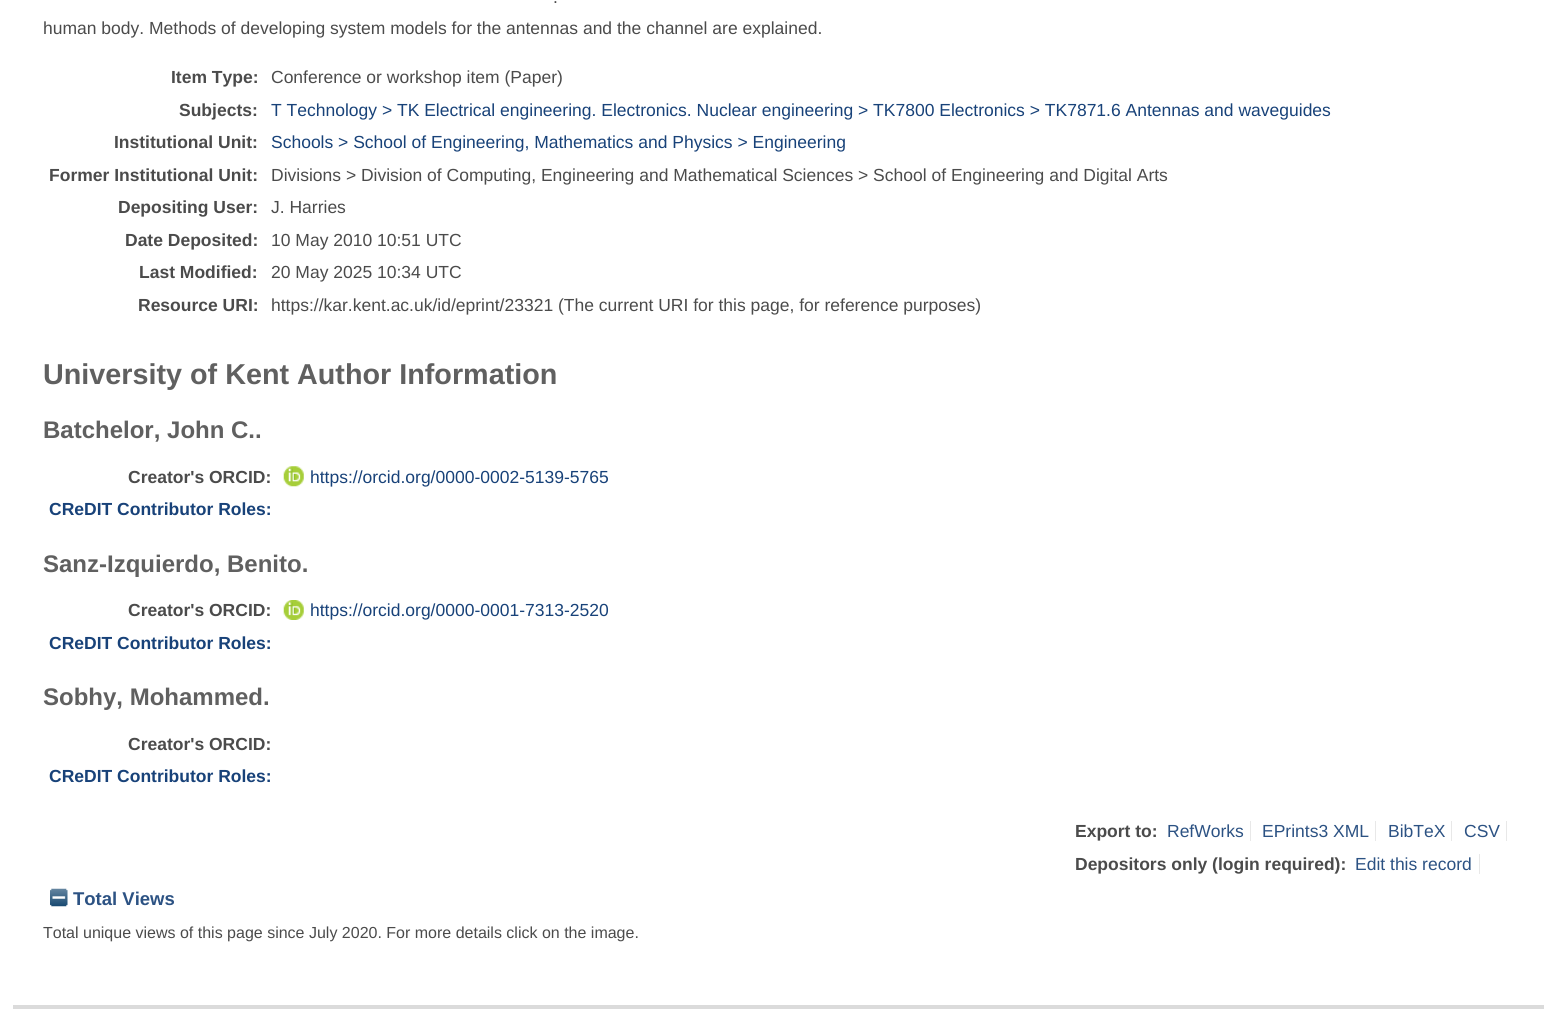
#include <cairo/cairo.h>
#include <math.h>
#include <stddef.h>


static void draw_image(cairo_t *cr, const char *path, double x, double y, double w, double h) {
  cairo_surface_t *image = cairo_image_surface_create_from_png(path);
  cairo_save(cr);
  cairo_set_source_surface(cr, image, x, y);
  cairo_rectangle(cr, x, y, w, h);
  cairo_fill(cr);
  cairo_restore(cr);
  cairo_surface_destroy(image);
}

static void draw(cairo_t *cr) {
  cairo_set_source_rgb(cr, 1, 1, 1);
  cairo_paint(cr);
  draw_image(cr, "images/1.png", 283, 466, 21, 21);
  draw_image(cr, "images/2.png", 283, 600, 21, 20);
  cairo_set_source_rgb(cr, 232 / 255.0, 232 / 255.0, 232 / 255.0);
  cairo_rectangle(cr, 1250, 821, 1, 20);
  cairo_fill(cr);
  cairo_rectangle(cr, 1375, 821, 1, 20);
  cairo_fill(cr);
  cairo_rectangle(cr, 1451, 821, 1, 20);
  cairo_fill(cr);
  cairo_rectangle(cr, 1506, 821, 1, 20);
  cairo_fill(cr);
  cairo_rectangle(cr, 1479, 854, 1, 20);
  cairo_fill(cr);
  draw_image(cr, "images/3.png", 50, 888, 18, 19);
  cairo_set_source_rgb(cr, 219 / 255.0, 219 / 255.0, 219 / 255.0);
  cairo_rectangle(cr, 13, 1005, 1531, 4);
  cairo_fill(cr);
  cairo_select_font_face(cr, "Liberation Sans", CAIRO_FONT_SLANT_NORMAL, CAIRO_FONT_WEIGHT_NORMAL);
  cairo_set_font_size(cr, 17.5);
  cairo_set_source_rgb(cr, 75 / 255.0, 75 / 255.0, 75 / 255.0);
  cairo_move_to(cr, 553, 3);
  cairo_show_text(cr, ".");
  cairo_move_to(cr, 43, 34);
  cairo_show_text(cr, "human body. Methods of developing system models for the antennas and the channel are explained.");
  cairo_select_font_face(cr, "Liberation Sans", CAIRO_FONT_SLANT_NORMAL, CAIRO_FONT_WEIGHT_BOLD);
  cairo_move_to(cr, 171, 83);
  cairo_show_text(cr, "Item Type:");
  cairo_select_font_face(cr, "Liberation Sans", CAIRO_FONT_SLANT_NORMAL, CAIRO_FONT_WEIGHT_NORMAL);
  cairo_move_to(cr, 271, 83);
  cairo_show_text(cr, "Conference or workshop item (Paper)");
  cairo_select_font_face(cr, "Liberation Sans", CAIRO_FONT_SLANT_NORMAL, CAIRO_FONT_WEIGHT_BOLD);
  cairo_move_to(cr, 179, 116);
  cairo_show_text(cr, "Subjects:");
  cairo_select_font_face(cr, "Liberation Sans", CAIRO_FONT_SLANT_NORMAL, CAIRO_FONT_WEIGHT_NORMAL);
  cairo_set_source_rgb(cr, 24 / 255.0, 66 / 255.0, 121 / 255.0);
  cairo_move_to(cr, 271, 116);
  cairo_show_text(cr, "T Technology > TK Electrical engineering. Electronics. Nuclear engineering > TK7800 Electronics > TK7871.6 Antennas and waveguides");
  cairo_select_font_face(cr, "Liberation Sans", CAIRO_FONT_SLANT_NORMAL, CAIRO_FONT_WEIGHT_BOLD);
  cairo_set_source_rgb(cr, 75 / 255.0, 75 / 255.0, 75 / 255.0);
  cairo_move_to(cr, 114, 148);
  cairo_show_text(cr, "Institutional Unit:");
  cairo_select_font_face(cr, "Liberation Sans", CAIRO_FONT_SLANT_NORMAL, CAIRO_FONT_WEIGHT_NORMAL);
  cairo_set_source_rgb(cr, 24 / 255.0, 66 / 255.0, 121 / 255.0);
  cairo_move_to(cr, 271, 148);
  cairo_show_text(cr, "Schools > School of Engineering, Mathematics and Physics > Engineering");
  cairo_select_font_face(cr, "Liberation Sans", CAIRO_FONT_SLANT_NORMAL, CAIRO_FONT_WEIGHT_BOLD);
  cairo_set_source_rgb(cr, 75 / 255.0, 75 / 255.0, 75 / 255.0);
  cairo_move_to(cr, 49, 181);
  cairo_show_text(cr, "Former Institutional Unit:");
  cairo_select_font_face(cr, "Liberation Sans", CAIRO_FONT_SLANT_NORMAL, CAIRO_FONT_WEIGHT_NORMAL);
  cairo_move_to(cr, 271, 181);
  cairo_show_text(cr, "Divisions > Division of Computing, Engineering and Mathematical Sciences > School of Engineering and Digital Arts");
  cairo_select_font_face(cr, "Liberation Sans", CAIRO_FONT_SLANT_NORMAL, CAIRO_FONT_WEIGHT_BOLD);
  cairo_move_to(cr, 118, 213);
  cairo_show_text(cr, "Depositing User:");
  cairo_select_font_face(cr, "Liberation Sans", CAIRO_FONT_SLANT_NORMAL, CAIRO_FONT_WEIGHT_NORMAL);
  cairo_move_to(cr, 271, 213);
  cairo_show_text(cr, "J. Harries");
  cairo_select_font_face(cr, "Liberation Sans", CAIRO_FONT_SLANT_NORMAL, CAIRO_FONT_WEIGHT_BOLD);
  cairo_move_to(cr, 125, 246);
  cairo_show_text(cr, "Date Deposited:");
  cairo_select_font_face(cr, "Liberation Sans", CAIRO_FONT_SLANT_NORMAL, CAIRO_FONT_WEIGHT_NORMAL);
  cairo_move_to(cr, 271, 246);
  cairo_show_text(cr, "10 May 2010 10:51 UTC");
  cairo_select_font_face(cr, "Liberation Sans", CAIRO_FONT_SLANT_NORMAL, CAIRO_FONT_WEIGHT_BOLD);
  cairo_move_to(cr, 139, 278);
  cairo_show_text(cr, "Last Modified:");
  cairo_select_font_face(cr, "Liberation Sans", CAIRO_FONT_SLANT_NORMAL, CAIRO_FONT_WEIGHT_NORMAL);
  cairo_move_to(cr, 271, 278);
  cairo_show_text(cr, "20 May 2025 10:34 UTC");
  cairo_select_font_face(cr, "Liberation Sans", CAIRO_FONT_SLANT_NORMAL, CAIRO_FONT_WEIGHT_BOLD);
  cairo_move_to(cr, 138, 311);
  cairo_show_text(cr, "Resource URI:");
  cairo_select_font_face(cr, "Liberation Sans", CAIRO_FONT_SLANT_NORMAL, CAIRO_FONT_WEIGHT_NORMAL);
  cairo_move_to(cr, 271, 311);
  cairo_show_text(cr, "https://kar.kent.ac.uk/id/eprint/23321 (The current URI for this page, for reference purposes)");
  cairo_select_font_face(cr, "Liberation Sans", CAIRO_FONT_SLANT_NORMAL, CAIRO_FONT_WEIGHT_BOLD);
  cairo_set_font_size(cr, 28.75);
  cairo_set_source_rgb(cr, 96 / 255.0, 96 / 255.0, 96 / 255.0);
  cairo_move_to(cr, 43, 384);
  cairo_show_text(cr, "University of Kent Author Information");
  cairo_set_font_size(cr, 24);
  cairo_move_to(cr, 43, 438);
  cairo_show_text(cr, "Batchelor, John C..");
  cairo_set_font_size(cr, 17.5);
  cairo_set_source_rgb(cr, 75 / 255.0, 75 / 255.0, 75 / 255.0);
  cairo_move_to(cr, 128, 483);
  cairo_show_text(cr, "Creator's ORCID:");
  cairo_select_font_face(cr, "Liberation Sans", CAIRO_FONT_SLANT_NORMAL, CAIRO_FONT_WEIGHT_NORMAL);
  cairo_set_source_rgb(cr, 24 / 255.0, 66 / 255.0, 121 / 255.0);
  cairo_move_to(cr, 310, 483);
  cairo_show_text(cr, "https://orcid.org/0000-0002-5139-5765");
  cairo_select_font_face(cr, "Liberation Sans", CAIRO_FONT_SLANT_NORMAL, CAIRO_FONT_WEIGHT_BOLD);
  cairo_move_to(cr, 49, 515);
  cairo_show_text(cr, "CReDIT Contributor Roles:");
  cairo_set_font_size(cr, 24);
  cairo_set_source_rgb(cr, 96 / 255.0, 96 / 255.0, 96 / 255.0);
  cairo_move_to(cr, 43, 572);
  cairo_show_text(cr, "Sanz-Izquierdo, Benito.");
  cairo_set_font_size(cr, 17.5);
  cairo_set_source_rgb(cr, 75 / 255.0, 75 / 255.0, 75 / 255.0);
  cairo_move_to(cr, 128, 616);
  cairo_show_text(cr, "Creator's ORCID:");
  cairo_select_font_face(cr, "Liberation Sans", CAIRO_FONT_SLANT_NORMAL, CAIRO_FONT_WEIGHT_NORMAL);
  cairo_set_source_rgb(cr, 24 / 255.0, 66 / 255.0, 121 / 255.0);
  cairo_move_to(cr, 310, 616);
  cairo_show_text(cr, "https://orcid.org/0000-0001-7313-2520");
  cairo_select_font_face(cr, "Liberation Sans", CAIRO_FONT_SLANT_NORMAL, CAIRO_FONT_WEIGHT_BOLD);
  cairo_move_to(cr, 49, 649);
  cairo_show_text(cr, "CReDIT Contributor Roles:");
  cairo_set_font_size(cr, 24);
  cairo_set_source_rgb(cr, 96 / 255.0, 96 / 255.0, 96 / 255.0);
  cairo_move_to(cr, 43, 705);
  cairo_show_text(cr, "Sobhy, Mohammed.");
  cairo_set_font_size(cr, 17.5);
  cairo_set_source_rgb(cr, 75 / 255.0, 75 / 255.0, 75 / 255.0);
  cairo_move_to(cr, 128, 750);
  cairo_show_text(cr, "Creator's ORCID:");
  cairo_set_source_rgb(cr, 24 / 255.0, 66 / 255.0, 121 / 255.0);
  cairo_move_to(cr, 49, 782);
  cairo_show_text(cr, "CReDIT Contributor Roles:");
  cairo_set_source_rgb(cr, 75 / 255.0, 75 / 255.0, 75 / 255.0);
  cairo_move_to(cr, 1075, 837);
  cairo_show_text(cr, "Export to:");
  cairo_select_font_face(cr, "Liberation Sans", CAIRO_FONT_SLANT_NORMAL, CAIRO_FONT_WEIGHT_NORMAL);
  cairo_set_source_rgb(cr, 44 / 255.0, 82 / 255.0, 131 / 255.0);
  cairo_move_to(cr, 1167, 837);
  cairo_show_text(cr, "RefWorks");
  cairo_move_to(cr, 1262, 837);
  cairo_show_text(cr, "EPrints3 XML");
  cairo_move_to(cr, 1388, 837);
  cairo_show_text(cr, "BibTeX");
  cairo_move_to(cr, 1464, 837);
  cairo_show_text(cr, "CSV");
  cairo_select_font_face(cr, "Liberation Sans", CAIRO_FONT_SLANT_NORMAL, CAIRO_FONT_WEIGHT_BOLD);
  cairo_set_source_rgb(cr, 75 / 255.0, 75 / 255.0, 75 / 255.0);
  cairo_move_to(cr, 1075, 870);
  cairo_show_text(cr, "Depositors only (login required):");
  cairo_select_font_face(cr, "Liberation Sans", CAIRO_FONT_SLANT_NORMAL, CAIRO_FONT_WEIGHT_NORMAL);
  cairo_set_source_rgb(cr, 44 / 255.0, 82 / 255.0, 131 / 255.0);
  cairo_move_to(cr, 1355, 870);
  cairo_show_text(cr, "Edit this record");
  cairo_select_font_face(cr, "Liberation Sans", CAIRO_FONT_SLANT_NORMAL, CAIRO_FONT_WEIGHT_BOLD);
  cairo_set_font_size(cr, 18.5);
  cairo_move_to(cr, 73, 905);
  cairo_show_text(cr, "Total Views");
  cairo_select_font_face(cr, "Liberation Sans", CAIRO_FONT_SLANT_NORMAL, CAIRO_FONT_WEIGHT_NORMAL);
  cairo_set_font_size(cr, 16);
  cairo_set_source_rgb(cr, 75 / 255.0, 75 / 255.0, 75 / 255.0);
  cairo_move_to(cr, 43, 938);
  cairo_show_text(cr, "Total unique views of this page since July 2020. For more details click on the image.");
}

int main(void) {
  cairo_surface_t *surface = cairo_image_surface_create(CAIRO_FORMAT_RGB24, 1556, 1009);
  cairo_t *cr = cairo_create(surface);
  cairo_font_options_t *options = cairo_font_options_create();
  cairo_font_options_set_hint_metrics(options, CAIRO_HINT_METRICS_OFF);
  cairo_font_options_set_hint_style(options, CAIRO_HINT_STYLE_NONE);
  cairo_set_font_options(cr, options);
  cairo_set_miter_limit(cr, 4);
  draw(cr);
  cairo_surface_write_to_png(surface, "out.png");
  cairo_font_options_destroy(options);
  cairo_destroy(cr);
  cairo_surface_destroy(surface);
  return 0;
}
